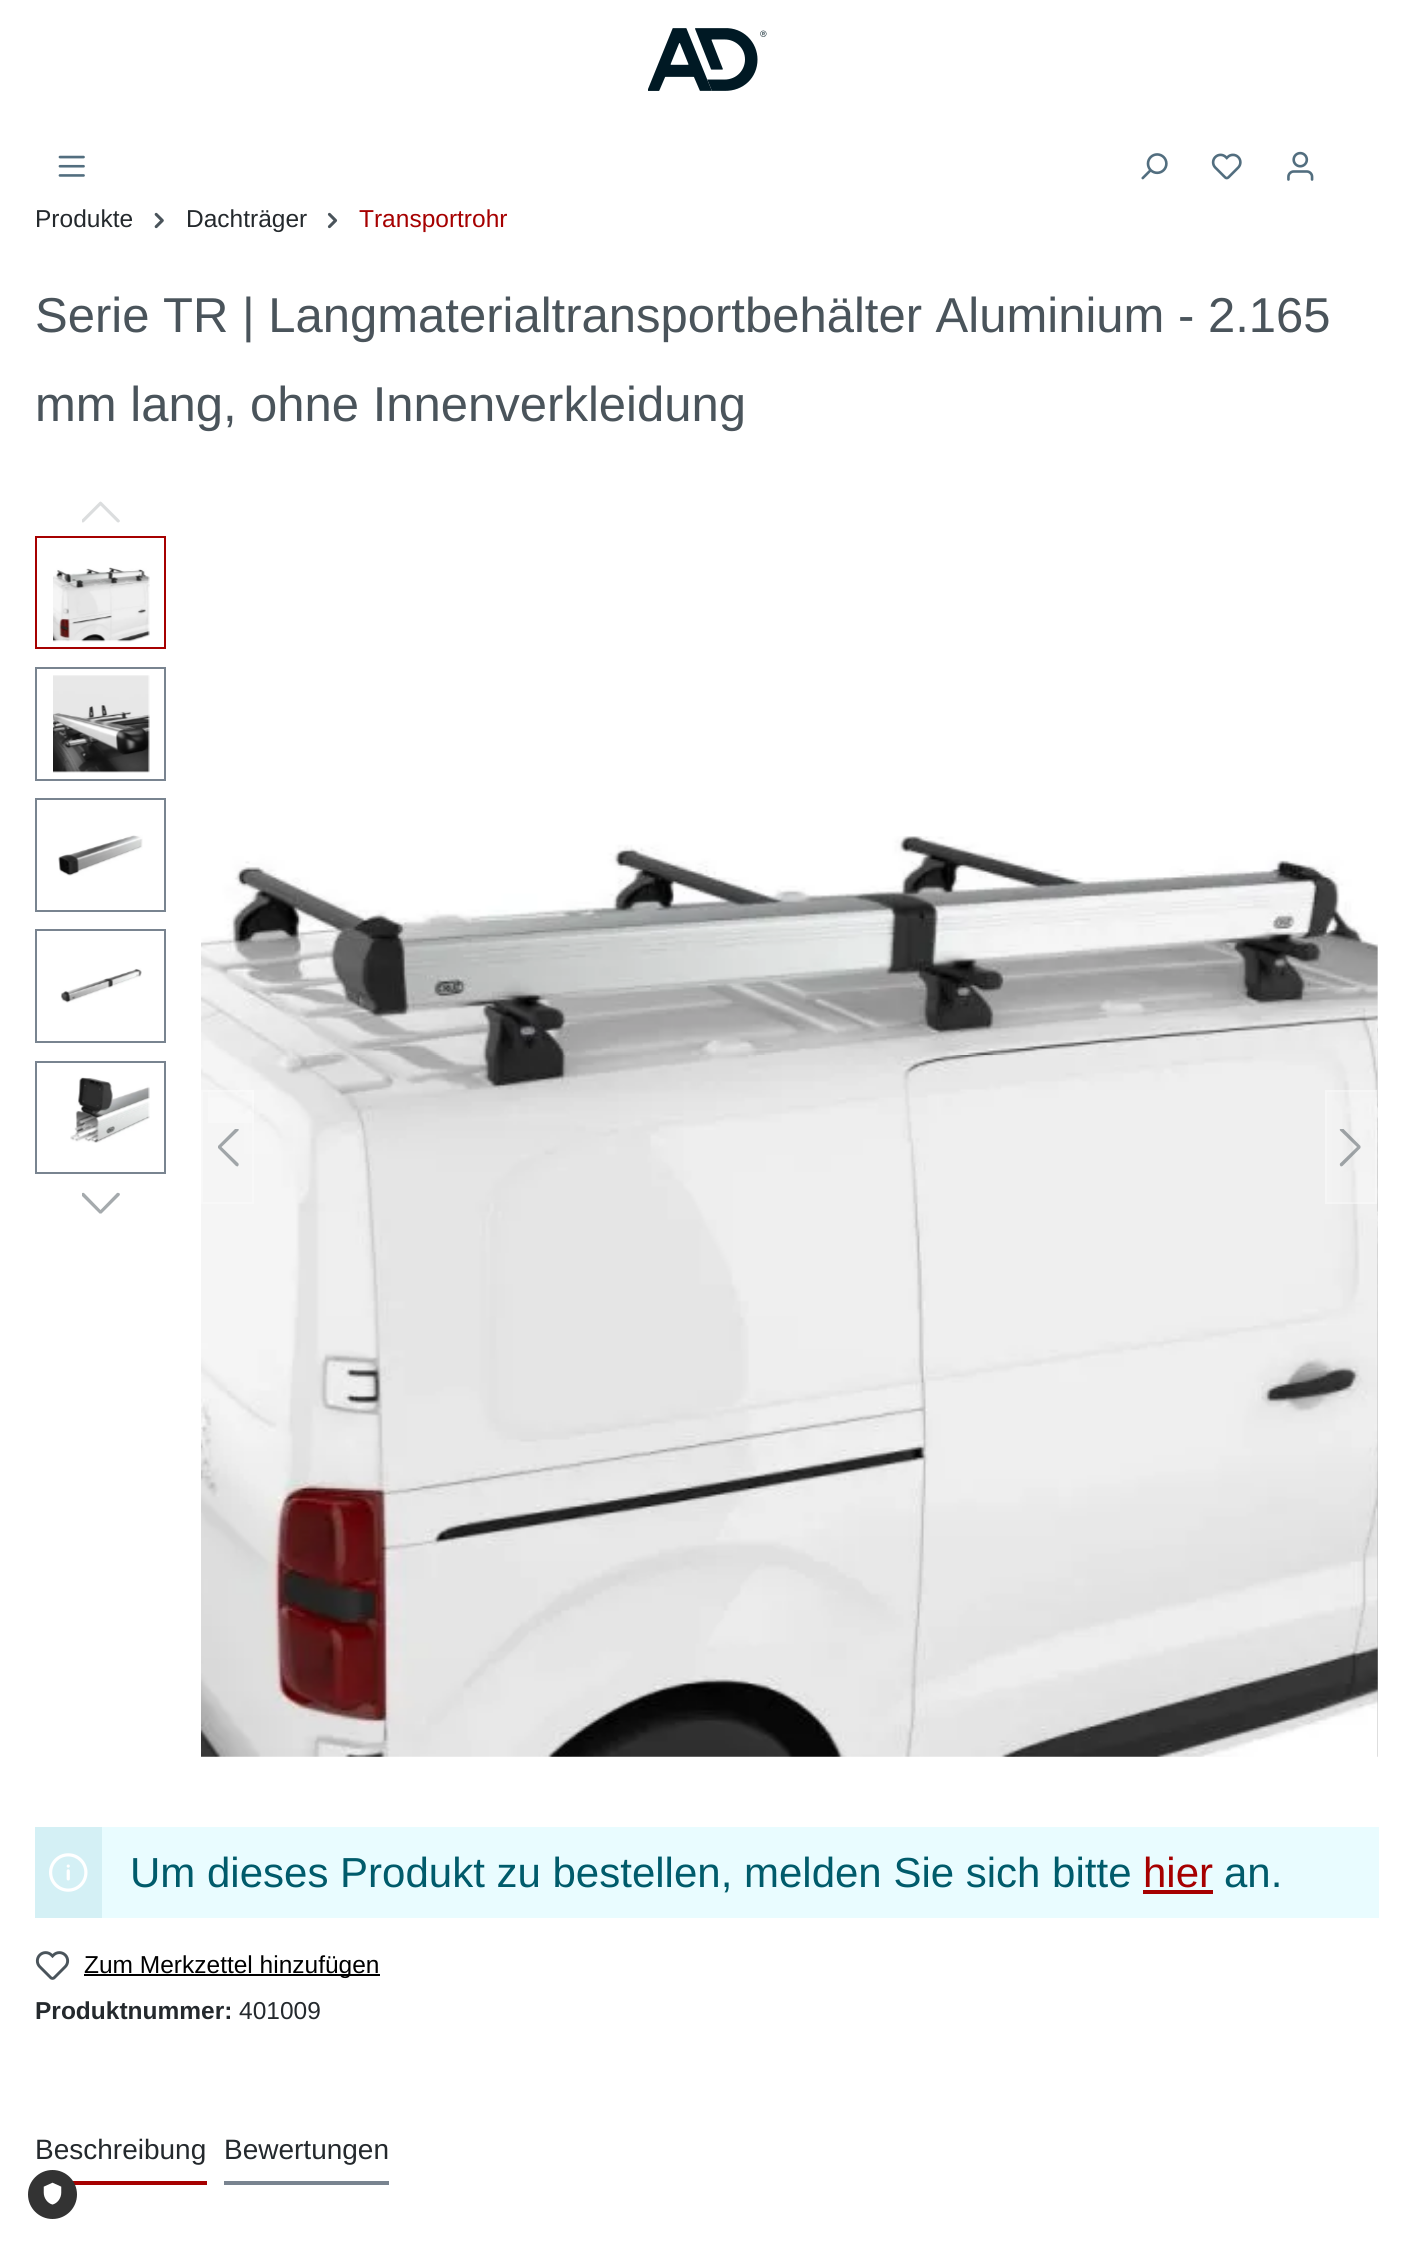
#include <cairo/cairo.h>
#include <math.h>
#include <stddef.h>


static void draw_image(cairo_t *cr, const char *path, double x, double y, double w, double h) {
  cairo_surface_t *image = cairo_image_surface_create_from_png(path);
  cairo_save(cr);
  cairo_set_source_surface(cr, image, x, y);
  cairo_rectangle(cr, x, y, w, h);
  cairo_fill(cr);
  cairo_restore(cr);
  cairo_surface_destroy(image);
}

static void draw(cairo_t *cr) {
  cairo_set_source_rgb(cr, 1, 1, 1);
  cairo_paint(cr);
  draw_image(cr, "images/1.png", 648, 28, 119, 63);
  draw_image(cr, "images/2.png", 58, 155, 27, 22);
  draw_image(cr, "images/3.png", 1141, 153, 27, 27);
  draw_image(cr, "images/4.png", 1211, 153, 31, 27);
  draw_image(cr, "images/5.png", 1287, 151, 27, 30);
  draw_image(cr, "images/6.png", 154, 212, 10, 17);
  draw_image(cr, "images/7.png", 327, 212, 11, 17);
  cairo_save(cr);
  cairo_rectangle(cr, 82, 501, 39, 31);
  cairo_clip(cr);
  cairo_set_source_rgb(cr, 219 / 255.0, 221 / 255.0, 222 / 255.0);
  cairo_set_fill_rule(cr, CAIRO_FILL_RULE_EVEN_ODD);
  cairo_new_path(cr);
  cairo_move_to(cr, 100.5, 505.5);
  cairo_line_to(cr, 117, 522);
  cairo_curve_to(cr, 118, 523, 119.5, 522.5, 120, 521);
  cairo_line_to(cr, 119.5, 520);
  cairo_line_to(cr, 101.5, 502);
  cairo_line_to(cr, 100.5, 501.5);
  cairo_line_to(cr, 99.5, 502);
  cairo_line_to(cr, 81.5, 520);
  cairo_line_to(cr, 81.5, 521);
  cairo_curve_to(cr, 81.5, 522.5, 83, 523, 84, 522);
  cairo_close_path(cr);
  cairo_fill(cr);
  cairo_restore(cr);
  cairo_save(cr);
  cairo_rectangle(cr, 82, 1185, 39, 38);
  cairo_clip(cr);
  cairo_set_source_rgb(cr, 165 / 255.0, 170 / 255.0, 173 / 255.0);
  cairo_set_fill_rule(cr, CAIRO_FILL_RULE_EVEN_ODD);
  cairo_new_path(cr);
  cairo_move_to(cr, 100.5, 1210);
  cairo_line_to(cr, 117, 1193);
  cairo_curve_to(cr, 118, 1192.5, 119.5, 1193, 120, 1194);
  cairo_line_to(cr, 119.5, 1195.5);
  cairo_line_to(cr, 101.5, 1213.5);
  cairo_line_to(cr, 100.5, 1213.5);
  cairo_line_to(cr, 99.5, 1213.5);
  cairo_line_to(cr, 81.5, 1195.5);
  cairo_line_to(cr, 81.5, 1194);
  cairo_curve_to(cr, 81.5, 1193, 83, 1192.5, 84, 1193);
  cairo_close_path(cr);
  cairo_fill(cr);
  cairo_restore(cr);
  cairo_rectangle(cr, 36, 537, 129, 111);
  cairo_set_source_rgb(cr, 166 / 255.0, 0, 0);
  cairo_stroke(cr);
  draw_image(cr, "images/8.png", 53, 567, 97, 75);
  cairo_rectangle(cr, 36, 668, 129, 112);
  cairo_set_source_rgb(cr, 121 / 255.0, 132 / 255.0, 144 / 255.0);
  cairo_stroke(cr);
  draw_image(cr, "images/9.png", 53, 675, 97, 98);
  cairo_rectangle(cr, 36, 799, 129, 112);
  cairo_stroke(cr);
  draw_image(cr, "images/10.png", 58, 835, 85, 41);
  cairo_rectangle(cr, 36, 930, 129, 112);
  cairo_stroke(cr);
  draw_image(cr, "images/11.png", 60, 968, 82, 35);
  cairo_rectangle(cr, 36, 1062, 129, 111);
  cairo_stroke(cr);
  draw_image(cr, "images/12.png", 70, 1077, 80, 66);
  draw_image(cr, "images/13.png", 201, 836, 1177, 921);
  draw_image(cr, "images/14.png", 1377, 946, 1, 811);
  cairo_set_source_rgba(cr, 1, 1, 1, 0.25);
  cairo_rectangle(cr, 208, 1090, 46, 33);
  cairo_fill(cr);
  cairo_rectangle(cr, 202, 1091, 51, 112);
  cairo_stroke(cr);
  cairo_save(cr);
  cairo_rectangle(cr, 208, 1129, 39, 38);
  cairo_clip(cr);
  cairo_set_source_rgb(cr, 160 / 255.0, 165 / 255.0, 168 / 255.0);
  cairo_set_fill_rule(cr, CAIRO_FILL_RULE_EVEN_ODD);
  cairo_new_path(cr);
  cairo_move_to(cr, 221.5, 1147);
  cairo_line_to(cr, 238.5, 1163.5);
  cairo_curve_to(cr, 239, 1164.5, 238.5, 1166, 237.5, 1166.5);
  cairo_line_to(cr, 236, 1166);
  cairo_line_to(cr, 218, 1148);
  cairo_line_to(cr, 218, 1147);
  cairo_line_to(cr, 218, 1146);
  cairo_line_to(cr, 236, 1128);
  cairo_line_to(cr, 237.5, 1128);
  cairo_curve_to(cr, 238.5, 1128, 239, 1129.5, 238.5, 1130.5);
  cairo_close_path(cr);
  cairo_fill(cr);
  cairo_restore(cr);
  cairo_rectangle(cr, 1325, 1090, 52, 114);
  cairo_fill(cr);
  cairo_rectangle(cr, 1326, 1091, 50, 112);
  cairo_stroke(cr);
  cairo_save(cr);
  cairo_rectangle(cr, 1332, 1129, 38, 38);
  cairo_clip(cr);
  cairo_set_source_rgba(cr, 74 / 255.0, 84 / 255.0, 91 / 255.0, 0.5);
  cairo_set_fill_rule(cr, CAIRO_FILL_RULE_EVEN_ODD);
  cairo_new_path(cr);
  cairo_move_to(cr, 1357, 1147);
  cairo_line_to(cr, 1340, 1163.5);
  cairo_curve_to(cr, 1339.5, 1164.5, 1340, 1166, 1341, 1166.5);
  cairo_line_to(cr, 1342.5, 1166);
  cairo_line_to(cr, 1360.5, 1148);
  cairo_line_to(cr, 1360.5, 1147);
  cairo_line_to(cr, 1360.5, 1146);
  cairo_line_to(cr, 1342.5, 1128);
  cairo_line_to(cr, 1341, 1128);
  cairo_curve_to(cr, 1340, 1128, 1339.5, 1129.5, 1340, 1130.5);
  cairo_close_path(cr);
  cairo_fill(cr);
  cairo_restore(cr);
  cairo_set_source_rgb(cr, 212 / 255.0, 240 / 255.0, 245 / 255.0);
  cairo_rectangle(cr, 35, 1827, 67, 91);
  cairo_fill(cr);
  draw_image(cr, "images/15.png", 49, 1853, 39, 39);
  cairo_set_source_rgb(cr, 233 / 255.0, 252 / 255.0, 1);
  cairo_rectangle(cr, 102, 1827, 1277, 91);
  cairo_fill(cr);
  cairo_set_source_rgb(cr, 166 / 255.0, 0, 0);
  cairo_rectangle(cr, 1143, 1890, 70, 4);
  cairo_fill(cr);
  draw_image(cr, "images/16.png", 35, 1951, 35, 29);
  cairo_set_source_rgb(cr, 0, 0, 0);
  cairo_rectangle(cr, 84, 1974, 296, 2);
  cairo_fill(cr);
  cairo_set_source_rgb(cr, 166 / 255.0, 0, 0);
  cairo_rectangle(cr, 73, 2181, 134, 4);
  cairo_fill(cr);
  cairo_set_source_rgb(cr, 121 / 255.0, 132 / 255.0, 144 / 255.0);
  cairo_rectangle(cr, 224, 2181, 165, 4);
  cairo_fill(cr);
  cairo_set_source_rgb(cr, 51 / 255.0, 51 / 255.0, 51 / 255.0);
  cairo_arc(cr, 52.5, 2194.5, 24.5, 0, 2 * M_PI);
  cairo_fill(cr);
  draw_image(cr, "images/17.png", 43, 2182, 19, 23);
  cairo_select_font_face(cr, "Liberation Sans", CAIRO_FONT_SLANT_NORMAL, CAIRO_FONT_WEIGHT_NORMAL);
  cairo_set_font_size(cr, 24.5);
  cairo_set_source_rgb(cr, 36 / 255.0, 41 / 255.0, 45 / 255.0);
  cairo_move_to(cr, 35, 227);
  cairo_show_text(cr, "Produkte");
  cairo_move_to(cr, 186, 227);
  cairo_show_text(cr, "Dachträger");
  cairo_set_source_rgb(cr, 166 / 255.0, 0, 0);
  cairo_move_to(cr, 359, 227);
  cairo_show_text(cr, "Transportrohr");
  cairo_set_font_size(cr, 49);
  cairo_set_source_rgb(cr, 74 / 255.0, 84 / 255.0, 91 / 255.0);
  cairo_move_to(cr, 35, 332);
  cairo_show_text(cr, "Serie TR | Langmaterialtransportbehälter Aluminium - 2.165");
  cairo_move_to(cr, 35, 421);
  cairo_show_text(cr, "mm lang, ohne Innenverkleidung");
  cairo_set_font_size(cr, 42);
  cairo_set_source_rgb(cr, 0, 91 / 255.0, 107 / 255.0);
  cairo_move_to(cr, 130, 1887);
  cairo_show_text(cr, "Um dieses Produkt zu bestellen, melden Sie sich bitte");
  cairo_set_source_rgb(cr, 166 / 255.0, 0, 0);
  cairo_move_to(cr, 1143, 1887);
  cairo_show_text(cr, "hier");
  cairo_set_source_rgb(cr, 0, 91 / 255.0, 107 / 255.0);
  cairo_move_to(cr, 1224, 1887);
  cairo_show_text(cr, "an.");
  cairo_set_font_size(cr, 24.5);
  cairo_set_source_rgb(cr, 0, 0, 0);
  cairo_move_to(cr, 84, 1973);
  cairo_show_text(cr, "Zum Merkzettel hinzufügen");
  cairo_select_font_face(cr, "Liberation Sans", CAIRO_FONT_SLANT_NORMAL, CAIRO_FONT_WEIGHT_BOLD);
  cairo_set_source_rgb(cr, 36 / 255.0, 41 / 255.0, 45 / 255.0);
  cairo_move_to(cr, 35, 2019);
  cairo_show_text(cr, "Produktnummer:");
  cairo_select_font_face(cr, "Liberation Sans", CAIRO_FONT_SLANT_NORMAL, CAIRO_FONT_WEIGHT_NORMAL);
  cairo_move_to(cr, 239, 2019);
  cairo_show_text(cr, "401009");
  cairo_set_font_size(cr, 28);
  cairo_move_to(cr, 35, 2159);
  cairo_show_text(cr, "Beschreibung");
  cairo_move_to(cr, 224, 2159);
  cairo_show_text(cr, "Bewertungen");
}

int main(void) {
  cairo_surface_t *surface = cairo_image_surface_create(CAIRO_FORMAT_RGB24, 1414, 2246);
  cairo_t *cr = cairo_create(surface);
  cairo_font_options_t *options = cairo_font_options_create();
  cairo_font_options_set_hint_metrics(options, CAIRO_HINT_METRICS_OFF);
  cairo_font_options_set_hint_style(options, CAIRO_HINT_STYLE_NONE);
  cairo_set_font_options(cr, options);
  cairo_set_miter_limit(cr, 4);
  draw(cr);
  cairo_surface_write_to_png(surface, "out.png");
  cairo_font_options_destroy(options);
  cairo_destroy(cr);
  cairo_surface_destroy(surface);
  return 0;
}
